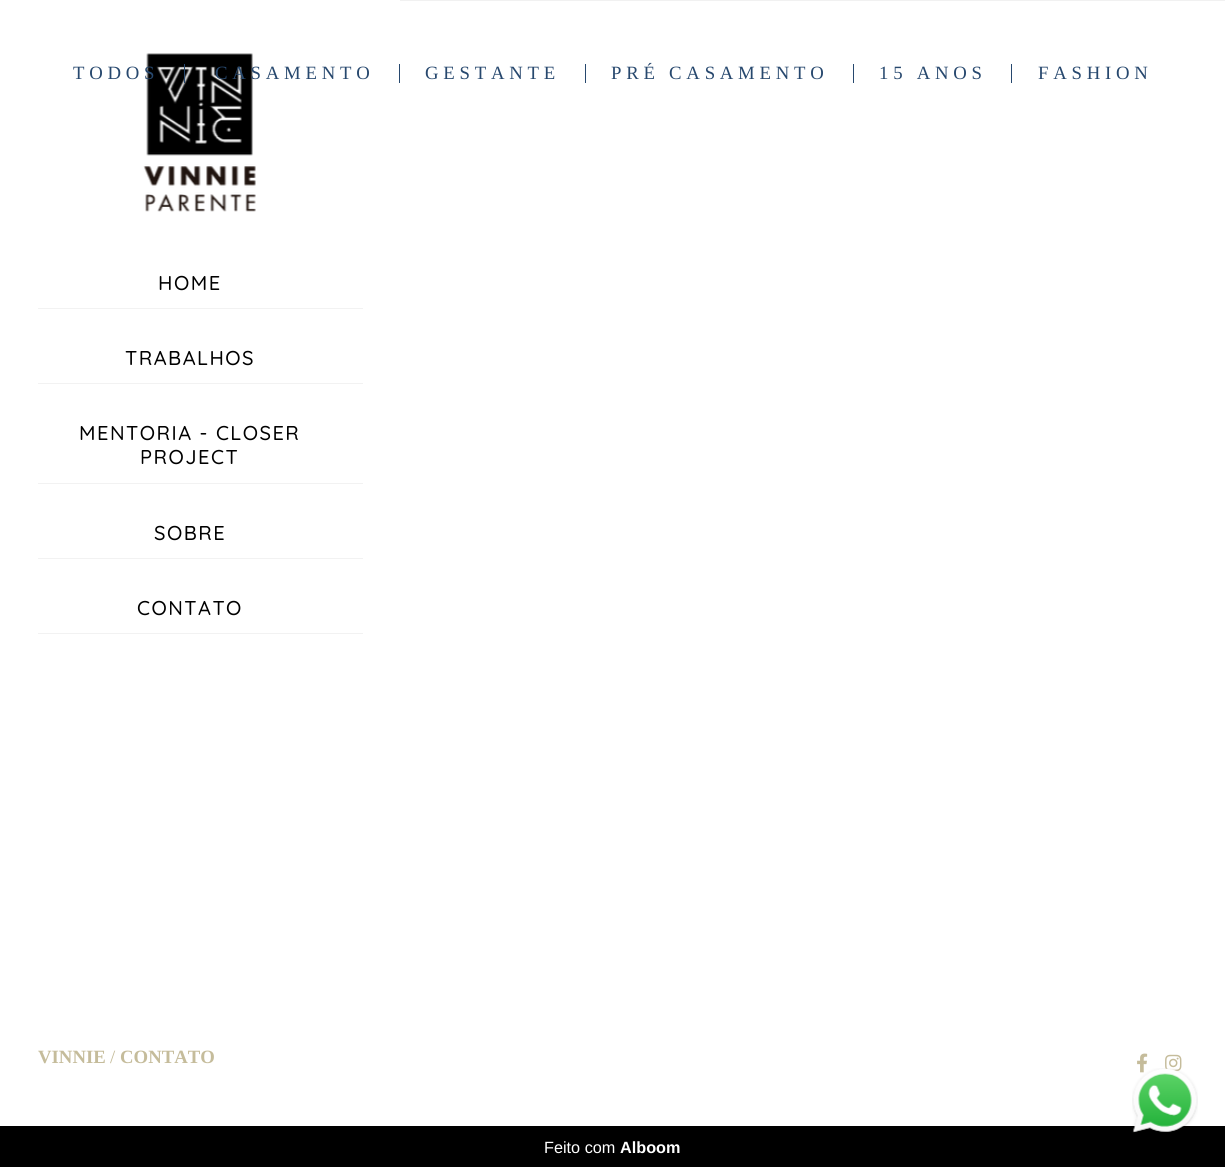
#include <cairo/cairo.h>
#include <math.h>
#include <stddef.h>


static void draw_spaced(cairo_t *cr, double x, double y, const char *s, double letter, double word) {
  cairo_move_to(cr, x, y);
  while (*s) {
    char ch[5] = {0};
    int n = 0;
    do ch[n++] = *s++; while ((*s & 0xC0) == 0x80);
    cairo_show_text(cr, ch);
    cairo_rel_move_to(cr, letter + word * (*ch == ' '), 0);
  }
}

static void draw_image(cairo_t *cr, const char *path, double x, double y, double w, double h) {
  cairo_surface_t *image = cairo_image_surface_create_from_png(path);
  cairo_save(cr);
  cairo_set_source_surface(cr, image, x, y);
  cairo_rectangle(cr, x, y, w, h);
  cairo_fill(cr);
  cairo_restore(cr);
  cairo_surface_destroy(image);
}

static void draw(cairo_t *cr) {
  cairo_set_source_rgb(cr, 1, 1, 1);
  cairo_paint(cr);
  cairo_set_source_rgb(cr, 241 / 255.0, 241 / 255.0, 241 / 255.0);
  cairo_rectangle(cr, 400, 0, 825, 1);
  cairo_fill(cr);
  draw_image(cr, "images/1.png", 143, 53, 113, 159);
  cairo_set_source_rgb(cr, 39 / 255.0, 72 / 255.0, 110 / 255.0);
  cairo_rectangle(cr, 184, 64, 1, 19);
  cairo_fill(cr);
  cairo_rectangle(cr, 399, 64, 1, 19);
  cairo_fill(cr);
  cairo_rectangle(cr, 585, 64, 1, 19);
  cairo_fill(cr);
  cairo_rectangle(cr, 853, 64, 1, 19);
  cairo_fill(cr);
  cairo_rectangle(cr, 1011, 64, 1, 19);
  cairo_fill(cr);
  cairo_set_source_rgb(cr, 242 / 255.0, 242 / 255.0, 242 / 255.0);
  cairo_rectangle(cr, 38, 308, 325, 1);
  cairo_fill(cr);
  cairo_rectangle(cr, 38, 383, 325, 1);
  cairo_fill(cr);
  cairo_rectangle(cr, 38, 483, 325, 1);
  cairo_fill(cr);
  cairo_rectangle(cr, 38, 558, 325, 1);
  cairo_fill(cr);
  cairo_rectangle(cr, 38, 633, 325, 1);
  cairo_fill(cr);
  draw_image(cr, "images/2.png", 1137, 1053, 11, 20);
  draw_image(cr, "images/3.png", 1165, 1054, 17, 18);
  cairo_set_source_rgb(cr, 0, 0, 0);
  cairo_rectangle(cr, 0, 1126, 1225, 41);
  cairo_fill(cr);
  draw_image(cr, "images/4.png", 1132, 1068, 66, 65);
  cairo_select_font_face(cr, "Liberation Serif", CAIRO_FONT_SLANT_NORMAL, CAIRO_FONT_WEIGHT_NORMAL);
  cairo_set_font_size(cr, 18.75);
  cairo_set_source_rgb(cr, 39 / 255.0, 72 / 255.0, 110 / 255.0);
  draw_spaced(cr, 73, 79, "TODOS", 4.75, 0);
  draw_spaced(cr, 215, 79, "CASAMENTO", 4.75, 0);
  draw_spaced(cr, 425, 79, "GESTANTE", 4.75, 0);
  draw_spaced(cr, 611, 79, "PRÉ CASAMENTO", 4.75, 0);
  draw_spaced(cr, 879, 79, "15 ANOS", 4.75, 0);
  draw_spaced(cr, 1038, 79, "FASHION", 4.75, 0);
  cairo_select_font_face(cr, "Quicksand Medium", CAIRO_FONT_SLANT_NORMAL, CAIRO_FONT_WEIGHT_NORMAL);
  cairo_set_font_size(cr, 20);
  cairo_set_source_rgb(cr, 0, 0, 0);
  draw_spaced(cr, 158, 290, "HOME", 1.5, 0);
  draw_spaced(cr, 125, 365, "TRABALHOS", 1.5, 0);
  draw_spaced(cr, 79, 440, "MENTORIA - CLOSER", 1.5, 0);
  draw_spaced(cr, 140, 464, "PROJECT", 1.5, 0);
  draw_spaced(cr, 154, 540, "SOBRE", 1.5, 0);
  draw_spaced(cr, 137, 615, "CONTATO", 1.5, 0);
  cairo_select_font_face(cr, "Liberation Serif", CAIRO_FONT_SLANT_NORMAL, CAIRO_FONT_WEIGHT_BOLD);
  cairo_set_font_size(cr, 18.75);
  cairo_set_source_rgb(cr, 197 / 255.0, 188 / 255.0, 155 / 255.0);
  cairo_move_to(cr, 38, 1063);
  cairo_show_text(cr, "VINNIE");
  cairo_select_font_face(cr, "Liberation Serif", CAIRO_FONT_SLANT_NORMAL, CAIRO_FONT_WEIGHT_NORMAL);
  cairo_move_to(cr, 110, 1063);
  cairo_show_text(cr, "/");
  cairo_select_font_face(cr, "Liberation Serif", CAIRO_FONT_SLANT_NORMAL, CAIRO_FONT_WEIGHT_BOLD);
  cairo_move_to(cr, 120, 1063);
  cairo_show_text(cr, "CONTATO");
  cairo_select_font_face(cr, "Liberation Sans", CAIRO_FONT_SLANT_NORMAL, CAIRO_FONT_WEIGHT_NORMAL);
  cairo_set_font_size(cr, 16.25);
  cairo_set_source_rgb(cr, 1, 1, 1);
  cairo_move_to(cr, 544, 1153);
  cairo_show_text(cr, "Feito com");
  cairo_select_font_face(cr, "Liberation Sans", CAIRO_FONT_SLANT_NORMAL, CAIRO_FONT_WEIGHT_BOLD);
  cairo_move_to(cr, 620, 1153);
  cairo_show_text(cr, "Alboom");
}

int main(void) {
  cairo_surface_t *surface = cairo_image_surface_create(CAIRO_FORMAT_RGB24, 1225, 1167);
  cairo_t *cr = cairo_create(surface);
  cairo_font_options_t *options = cairo_font_options_create();
  cairo_font_options_set_hint_metrics(options, CAIRO_HINT_METRICS_OFF);
  cairo_font_options_set_hint_style(options, CAIRO_HINT_STYLE_NONE);
  cairo_set_font_options(cr, options);
  cairo_set_miter_limit(cr, 4);
  draw(cr);
  cairo_surface_write_to_png(surface, "out.png");
  cairo_font_options_destroy(options);
  cairo_destroy(cr);
  cairo_surface_destroy(surface);
  return 0;
}
